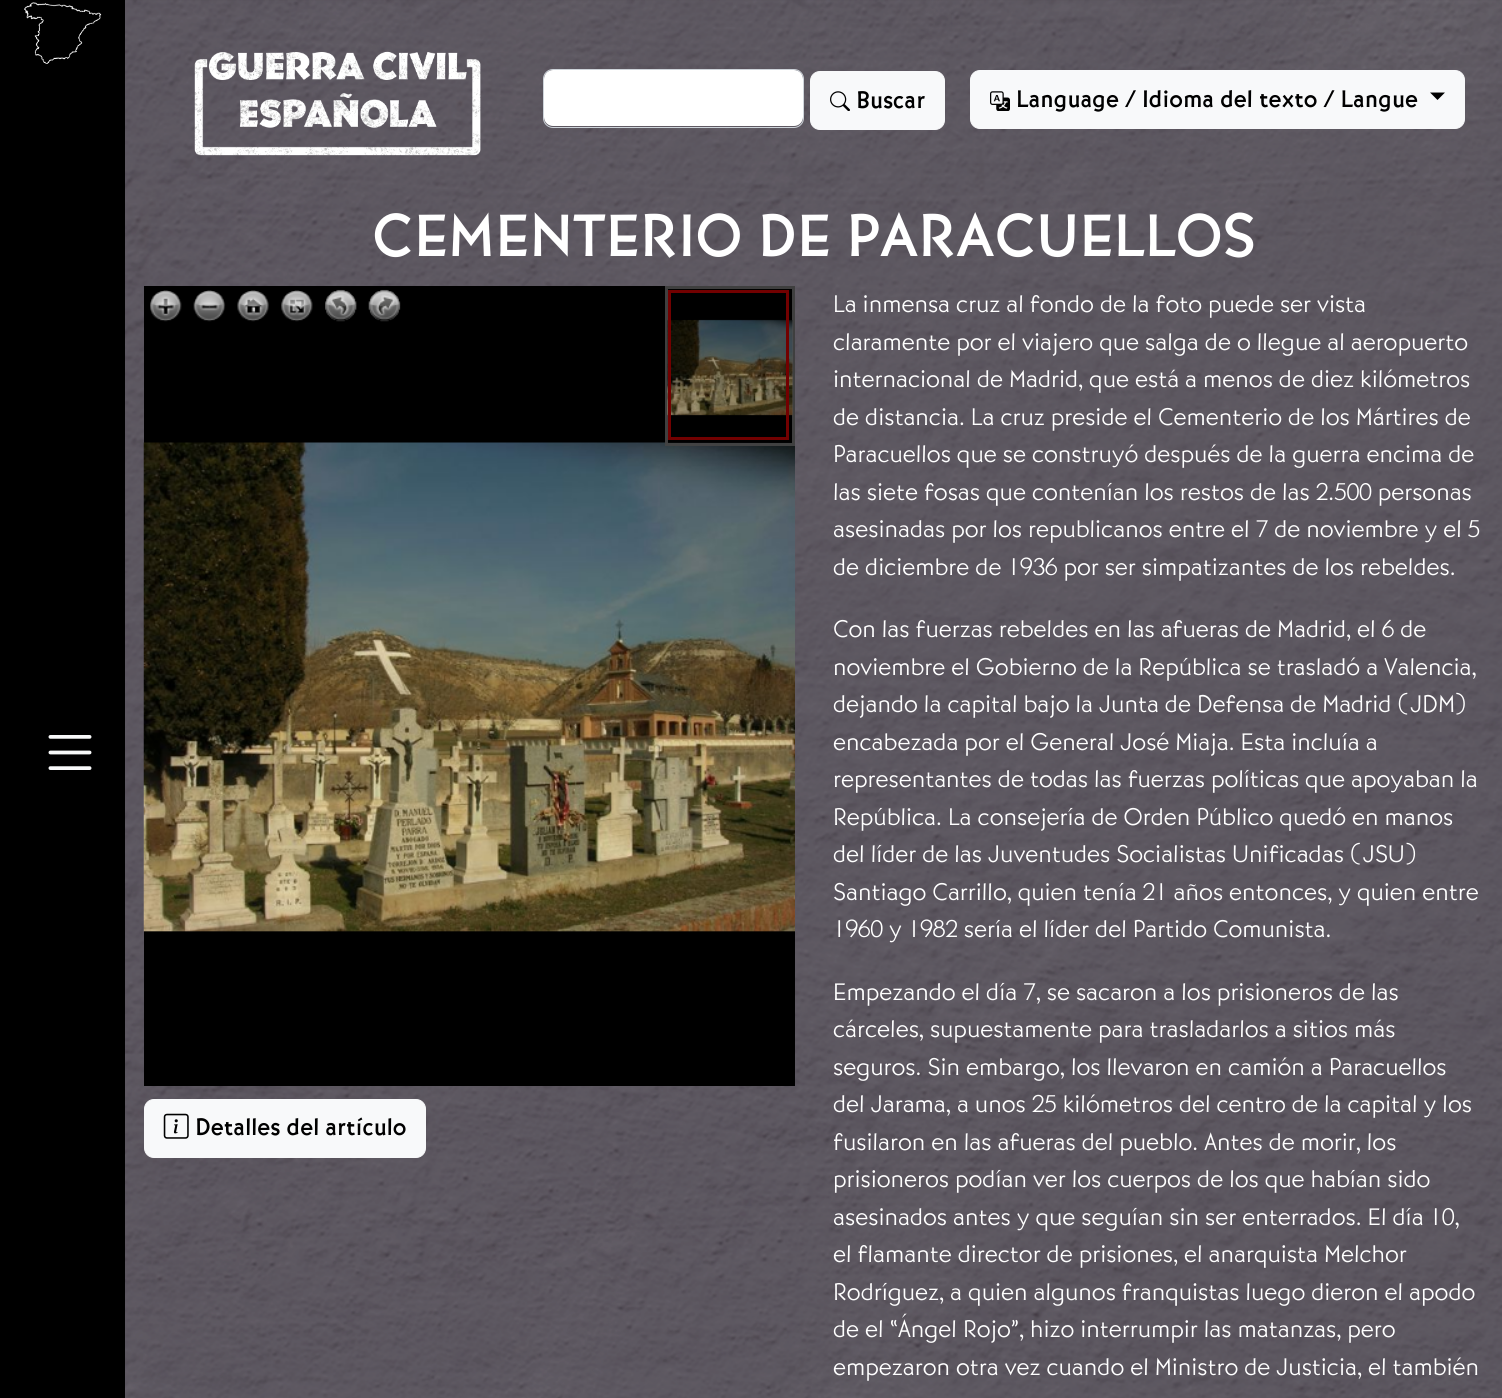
#include <cairo/cairo.h>
#include <math.h>
#include <stddef.h>


static void rounded_rect(cairo_t *cr, double x, double y, double w, double h, double r) {
  cairo_new_sub_path(cr);
  cairo_arc(cr, x + w - r, y + h - r, r, 0, M_PI / 2);
  cairo_arc(cr, x + r, y + h - r, r, M_PI / 2, M_PI);
  cairo_arc(cr, x + r, y + r, r, M_PI, 1.5 * M_PI);
  cairo_arc(cr, x + w - r, y + r, r, 1.5 * M_PI, 2 * M_PI);
  cairo_close_path(cr);
}

static void draw_image(cairo_t *cr, const char *path, double x, double y, double w, double h) {
  cairo_surface_t *image = cairo_image_surface_create_from_png(path);
  cairo_save(cr);
  cairo_set_source_surface(cr, image, x, y);
  cairo_rectangle(cr, x, y, w, h);
  cairo_fill(cr);
  cairo_restore(cr);
  cairo_surface_destroy(image);
}

static void draw(cairo_t *cr) {
  cairo_set_source_rgb(cr, 1, 1, 1);
  cairo_paint(cr);
  draw_image(cr, "images/1.png", 125, 0, 1377, 1398);
  cairo_set_source_rgb(cr, 0, 0, 0);
  cairo_rectangle(cr, 0, 0, 125, 1398);
  cairo_fill(cr);
  draw_image(cr, "images/2.png", 24, 2, 78, 62);
  draw_image(cr, "images/3.png", 48, 735, 44, 35);
  draw_image(cr, "images/4.png", 194, 51, 287, 105);
  cairo_set_source_rgb(cr, 1, 1, 1);
  rounded_rect(cr, 544, 70, 259, 56, 9);
  cairo_fill(cr);
  rounded_rect(cr, 543.5, 69.5, 260, 58, 9.5);
  cairo_set_source_rgb(cr, 206 / 255.0, 212 / 255.0, 218 / 255.0);
  cairo_set_line_width(cr, 1);
  cairo_stroke(cr);
  cairo_set_source_rgb(cr, 248 / 255.0, 249 / 255.0, 250 / 255.0);
  rounded_rect(cr, 810.5, 71.5, 134, 58, 9.5);
  cairo_fill_preserve(cr);
  cairo_stroke(cr);
  draw_image(cr, "images/5.png", 830, 91, 20, 20);
  rounded_rect(cr, 970.5, 70.5, 494, 58, 9.5);
  cairo_fill_preserve(cr);
  cairo_stroke(cr);
  draw_image(cr, "images/6.png", 990, 91, 20, 20);
  cairo_set_source_rgb(cr, 0, 0, 0);
  cairo_new_path(cr);
  cairo_move_to(cr, 1430, 92.5);
  cairo_line_to(cr, 1445, 92.5);
  cairo_line_to(cr, 1437.5, 100);
  cairo_close_path(cr);
  cairo_fill(cr);
  cairo_rectangle(cr, 144, 286, 651, 800);
  cairo_fill(cr);
  draw_image(cr, "images/7.png", 150, 290, 32, 32);
  draw_image(cr, "images/8.png", 150, 290, 32, 31);
  draw_image(cr, "images/9.png", 193, 290, 33, 32);
  draw_image(cr, "images/10.png", 193, 290, 32, 31);
  draw_image(cr, "images/11.png", 237, 290, 32, 32);
  draw_image(cr, "images/12.png", 237, 290, 32, 31);
  draw_image(cr, "images/13.png", 281, 290, 32, 32);
  draw_image(cr, "images/14.png", 281, 290, 32, 31);
  draw_image(cr, "images/15.png", 325, 289, 32, 33);
  draw_image(cr, "images/16.png", 325, 290, 32, 32);
  draw_image(cr, "images/17.png", 368, 289, 33, 33);
  draw_image(cr, "images/18.png", 368, 290, 33, 32);
  draw_image(cr, "images/20.png", 143, 442, 652, 490);
  cairo_set_source_rgba(cr, 0, 0, 0, 0.74);
  cairo_rectangle(cr, 665, 442, 130, 4);
  cairo_fill(cr);
  cairo_rectangle(cr, 666.5, 287.5, 127, 157);
  cairo_set_source_rgba(cr, 85 / 255.0, 85 / 255.0, 85 / 255.0, 0.74);
  cairo_set_line_width(cr, 3);
  cairo_stroke(cr);
  draw_image(cr, "images/19.png", 667, 319, 126, 97);
  cairo_rectangle(cr, 669.5, 291.5, 118, 147);
  cairo_set_source_rgb(cr, 114 / 255.0, 0, 0);
  cairo_stroke(cr);
  cairo_set_source_rgb(cr, 248 / 255.0, 249 / 255.0, 250 / 255.0);
  rounded_rect(cr, 144.5, 1099.5, 281, 58, 9.5);
  cairo_fill_preserve(cr);
  cairo_set_line_width(cr, 1);
  cairo_stroke(cr);
  draw_image(cr, "images/21.png", 163, 1113, 26, 26);
  cairo_select_font_face(cr, "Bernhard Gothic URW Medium", CAIRO_FONT_SLANT_NORMAL, CAIRO_FONT_WEIGHT_NORMAL);
  cairo_set_font_size(cr, 25);
  cairo_set_source_rgb(cr, 0, 0, 0);
  cairo_move_to(cr, 856, 108);
  cairo_show_text(cr, "Buscar");
  cairo_move_to(cr, 1016, 107);
  cairo_show_text(cr, "Language / Idioma del texto / Langue");
  cairo_set_font_size(cr, 62.5);
  cairo_set_source_rgb(cr, 1, 1, 1);
  cairo_move_to(cr, 372, 256);
  cairo_show_text(cr, "CEMENTERIO DE PARACUELLOS");
  cairo_set_font_size(cr, 25);
  cairo_set_source_rgb(cr, 0, 0, 0);
  cairo_move_to(cr, 195, 1135);
  cairo_show_text(cr, "Detalles del artículo");
  cairo_select_font_face(cr, "Bernhard Gothic URW Light", CAIRO_FONT_SLANT_NORMAL, CAIRO_FONT_WEIGHT_NORMAL);
  cairo_set_source_rgb(cr, 1, 1, 1);
  cairo_move_to(cr, 833, 312);
  cairo_show_text(cr, "La inmensa cruz al fondo de la foto puede ser vista");
  cairo_move_to(cr, 833, 350);
  cairo_show_text(cr, "claramente por el viajero que salga de o llegue al aeropuerto");
  cairo_move_to(cr, 833, 387);
  cairo_show_text(cr, "internacional de Madrid, que está a menos de diez kilómetros");
  cairo_move_to(cr, 833, 425);
  cairo_show_text(cr, "de distancia. La cruz preside el Cementerio de los Mártires de");
  cairo_move_to(cr, 833, 462);
  cairo_show_text(cr, "Paracuellos que se construyó después de la guerra encima de");
  cairo_move_to(cr, 833, 500);
  cairo_show_text(cr, "las siete fosas que contenían los restos de las 2.500 personas");
  cairo_move_to(cr, 833, 537);
  cairo_show_text(cr, "asesinadas por los republicanos entre el 7 de noviembre y el 5");
  cairo_move_to(cr, 833, 575);
  cairo_show_text(cr, "de diciembre de 1936 por ser simpatizantes de los rebeldes.");
  cairo_move_to(cr, 833, 637);
  cairo_show_text(cr, "Con las fuerzas rebeldes en las afueras de Madrid, el 6 de");
  cairo_move_to(cr, 833, 675);
  cairo_show_text(cr, "noviembre el Gobierno de la República se trasladó a Valencia,");
  cairo_move_to(cr, 833, 712);
  cairo_show_text(cr, "dejando la capital bajo la Junta de Defensa de Madrid (JDM)");
  cairo_move_to(cr, 833, 750);
  cairo_show_text(cr, "encabezada por el General José Miaja. Esta incluía a");
  cairo_move_to(cr, 833, 787);
  cairo_show_text(cr, "representantes de todas las fuerzas políticas que apoyaban la");
  cairo_move_to(cr, 833, 825);
  cairo_show_text(cr, "República. La consejería de Orden Público quedó en manos");
  cairo_move_to(cr, 833, 862);
  cairo_show_text(cr, "del líder de las Juventudes Socialistas Unificadas (JSU)");
  cairo_move_to(cr, 833, 900);
  cairo_show_text(cr, "Santiago Carrillo, quien tenía 21 años entonces, y quien entre");
  cairo_move_to(cr, 833, 937);
  cairo_show_text(cr, "1960 y 1982 sería el líder del Partido Comunista.");
  cairo_move_to(cr, 833, 1000);
  cairo_show_text(cr, "Empezando el día 7, se sacaron a los prisioneros de las");
  cairo_move_to(cr, 833, 1037);
  cairo_show_text(cr, "cárceles, supuestamente para trasladarlos a sitios más");
  cairo_move_to(cr, 833, 1075);
  cairo_show_text(cr, "seguros. Sin embargo, los llevaron en camión a Paracuellos");
  cairo_move_to(cr, 833, 1112);
  cairo_show_text(cr, "del Jarama, a unos 25 kilómetros del centro de la capital y los");
  cairo_move_to(cr, 833, 1150);
  cairo_show_text(cr, "fusilaron en las afueras del pueblo. Antes de morir, los");
  cairo_move_to(cr, 833, 1187);
  cairo_show_text(cr, "prisioneros podían ver los cuerpos de los que habían sido");
  cairo_move_to(cr, 833, 1225);
  cairo_show_text(cr, "asesinados antes y que seguían sin ser enterrados. El día 10,");
  cairo_move_to(cr, 833, 1262);
  cairo_show_text(cr, "el flamante director de prisiones, el anarquista Melchor");
  cairo_move_to(cr, 833, 1300);
  cairo_show_text(cr, "Rodríguez, a quien algunos franquistas luego dieron el apodo");
  cairo_move_to(cr, 833, 1337);
  cairo_show_text(cr, "de el “Ángel Rojo”, hizo interrumpir las matanzas, pero");
  cairo_move_to(cr, 833, 1375);
  cairo_show_text(cr, "empezaron otra vez cuando el Ministro de Justicia, el también");
}

int main(void) {
  cairo_surface_t *surface = cairo_image_surface_create(CAIRO_FORMAT_RGB24, 1502, 1398);
  cairo_t *cr = cairo_create(surface);
  cairo_font_options_t *options = cairo_font_options_create();
  cairo_font_options_set_hint_metrics(options, CAIRO_HINT_METRICS_OFF);
  cairo_font_options_set_hint_style(options, CAIRO_HINT_STYLE_NONE);
  cairo_set_font_options(cr, options);
  cairo_set_miter_limit(cr, 4);
  draw(cr);
  cairo_surface_write_to_png(surface, "out.png");
  cairo_font_options_destroy(options);
  cairo_destroy(cr);
  cairo_surface_destroy(surface);
  return 0;
}
